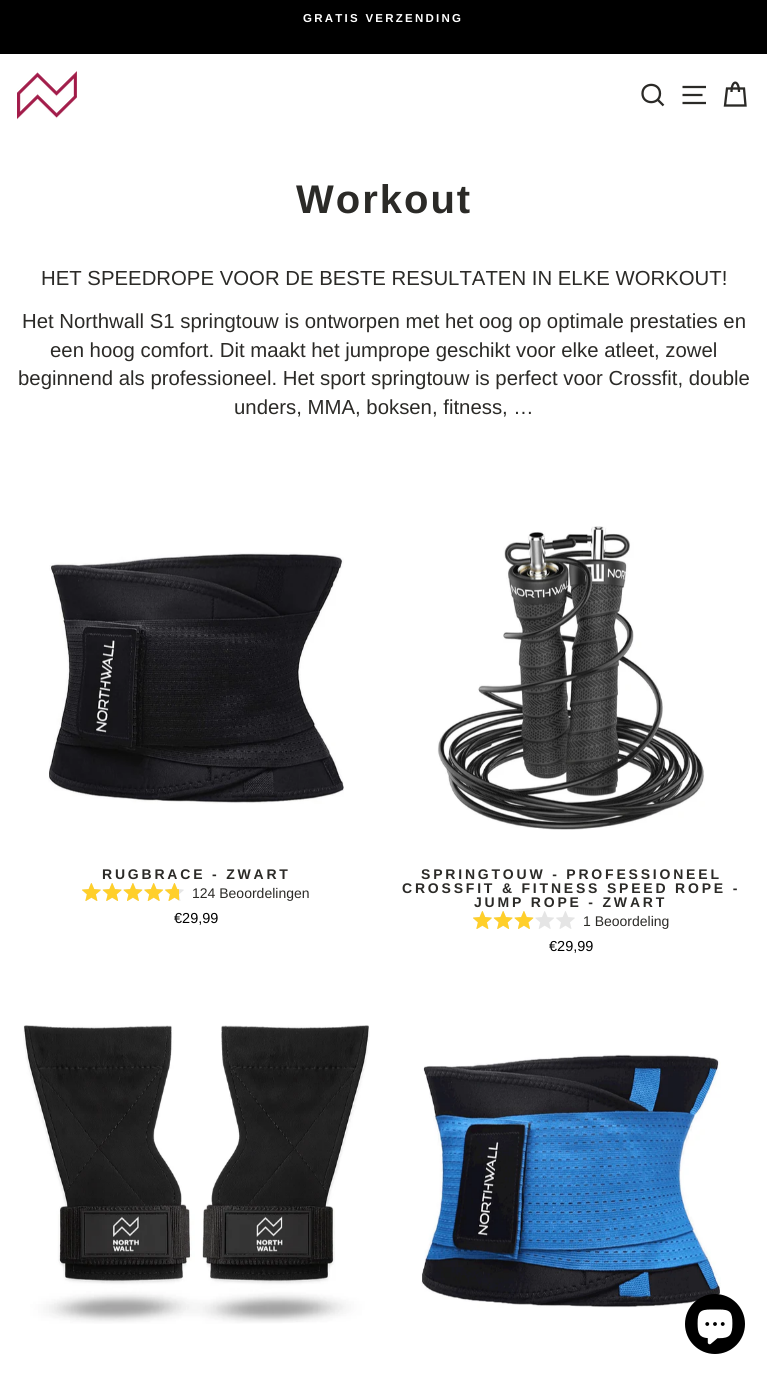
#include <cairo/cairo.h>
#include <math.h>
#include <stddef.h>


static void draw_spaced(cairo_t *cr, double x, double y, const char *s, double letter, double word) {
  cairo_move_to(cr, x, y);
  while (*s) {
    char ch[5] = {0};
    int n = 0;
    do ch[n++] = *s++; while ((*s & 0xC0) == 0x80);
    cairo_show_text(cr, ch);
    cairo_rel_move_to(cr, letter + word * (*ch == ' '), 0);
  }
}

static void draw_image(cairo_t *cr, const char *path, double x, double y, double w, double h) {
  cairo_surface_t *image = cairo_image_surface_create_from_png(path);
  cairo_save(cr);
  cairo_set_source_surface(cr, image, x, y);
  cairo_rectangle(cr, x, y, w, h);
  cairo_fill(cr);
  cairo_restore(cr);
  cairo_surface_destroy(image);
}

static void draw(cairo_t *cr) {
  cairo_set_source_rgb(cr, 1, 1, 1);
  cairo_paint(cr);
  cairo_set_source_rgb(cr, 0, 0, 0);
  cairo_rectangle(cr, 0, 0, 767, 54);
  cairo_fill(cr);
  draw_image(cr, "images/1.png", 17, 71, 60, 49);
  cairo_new_path(cr);
  cairo_move_to(cr, 660, 93.5);
  cairo_curve_to(cr, 660, 105, 642.5, 105, 642.5, 93.5);
  cairo_curve_to(cr, 642.5, 82, 660, 82, 660, 93.5);
  cairo_close_path(cr);
  cairo_move_to(cr, 663.5, 105.5);
  cairo_line_to(cr, 657.5, 99.5);
  cairo_set_source_rgb(cr, 43 / 255.0, 42 / 255.0, 39 / 255.0);
  cairo_set_line_width(cr, 2.3);
  cairo_stroke(cr);
  cairo_new_path(cr);
  cairo_move_to(cr, 682.5, 87);
  cairo_line_to(cr, 706, 87);
  cairo_move_to(cr, 682.5, 95);
  cairo_line_to(cr, 702.5, 95);
  cairo_move_to(cr, 682.5, 103);
  cairo_line_to(cr, 706, 103);
  cairo_move_to(cr, 731.5, 92);
  cairo_curve_to(cr, 731.5, 79.5, 739, 79.5, 739, 92);
  cairo_stroke(cr);
  cairo_new_path(cr);
  cairo_move_to(cr, 727, 88.5);
  cairo_line_to(cr, 744, 88.5);
  cairo_line_to(cr, 745.5, 105.5);
  cairo_line_to(cr, 725, 105.5);
  cairo_close_path(cr);
  cairo_stroke(cr);
  draw_image(cr, "images/2.png", 48, 552, 296, 252);
  draw_image(cr, "images/3.png", 82, 883, 102, 18);
  draw_image(cr, "images/4.png", 82, 883, 97, 18);
  draw_image(cr, "images/5.png", 437, 526, 268, 304);
  draw_image(cr, "images/3.png", 473, 911, 102, 18);
  draw_image(cr, "images/6.png", 473, 911, 61, 18);
  draw_image(cr, "images/7.png", 23, 1025, 347, 299);
  draw_image(cr, "images/8.png", 421, 1054, 300, 254);
  cairo_set_source_rgb(cr, 0, 0, 0);
  cairo_arc(cr, 715, 1324, 30, 0, 2 * M_PI);
  cairo_fill(cr);
  draw_image(cr, "images/9.png", 697, 1309, 36, 36);
  cairo_select_font_face(cr, "Liberation Sans", CAIRO_FONT_SLANT_NORMAL, CAIRO_FONT_WEIGHT_BOLD);
  cairo_set_font_size(cr, 11.5);
  cairo_set_source_rgb(cr, 1, 1, 1);
  draw_spaced(cr, 303, 22, "GRATIS VERZENDING", 2.25, 0);
  cairo_set_font_size(cr, 40);
  cairo_set_source_rgb(cr, 43 / 255.0, 42 / 255.0, 39 / 255.0);
  draw_spaced(cr, 296, 213, "Workout", 2, 0);
  cairo_select_font_face(cr, "Liberation Sans", CAIRO_FONT_SLANT_NORMAL, CAIRO_FONT_WEIGHT_NORMAL);
  cairo_set_font_size(cr, 20.35);
  cairo_move_to(cr, 41, 285);
  cairo_show_text(cr, "HET SPEEDROPE VOOR DE BESTE RESULTATEN IN ELKE WORKOUT!");
  cairo_move_to(cr, 22, 328);
  cairo_show_text(cr, "Het Northwall S1 springtouw is ontworpen met het oog op optimale prestaties en");
  cairo_move_to(cr, 50, 357);
  cairo_show_text(cr, "een hoog comfort. Dit maakt het jumprope geschikt voor elke atleet, zowel");
  cairo_move_to(cr, 18, 385);
  cairo_show_text(cr, "beginnend als professioneel. Het sport springtouw is perfect voor Crossfit, double");
  cairo_move_to(cr, 234, 414);
  cairo_show_text(cr, "unders, MMA, boksen, fitness, …");
  cairo_select_font_face(cr, "Liberation Sans", CAIRO_FONT_SLANT_NORMAL, CAIRO_FONT_WEIGHT_BOLD);
  cairo_set_font_size(cr, 14);
  draw_spaced(cr, 102, 879, "RUGBRACE - ZWART", 2.8, 0);
  cairo_select_font_face(cr, "Liberation Sans", CAIRO_FONT_SLANT_NORMAL, CAIRO_FONT_WEIGHT_NORMAL);
  cairo_move_to(cr, 192, 898);
  cairo_show_text(cr, "124 Beoordelingen");
  cairo_set_font_size(cr, 14.5);
  cairo_set_source_rgb(cr, 0, 0, 0);
  cairo_move_to(cr, 174, 923);
  cairo_show_text(cr, "€29,99");
  cairo_select_font_face(cr, "Liberation Sans", CAIRO_FONT_SLANT_NORMAL, CAIRO_FONT_WEIGHT_BOLD);
  cairo_set_font_size(cr, 14);
  cairo_set_source_rgb(cr, 43 / 255.0, 42 / 255.0, 39 / 255.0);
  draw_spaced(cr, 421, 879, "SPRINGTOUW - PROFESSIONEEL", 2.8, 0);
  draw_spaced(cr, 402, 893, "CROSSFIT & FITNESS SPEED ROPE -", 2.8, 0);
  draw_spaced(cr, 474, 907, "JUMP ROPE - ZWART", 2.8, 0);
  cairo_select_font_face(cr, "Liberation Sans", CAIRO_FONT_SLANT_NORMAL, CAIRO_FONT_WEIGHT_NORMAL);
  cairo_move_to(cr, 583, 926);
  cairo_show_text(cr, "1 Beoordeling");
  cairo_set_font_size(cr, 14.5);
  cairo_set_source_rgb(cr, 0, 0, 0);
  cairo_move_to(cr, 549, 951);
  cairo_show_text(cr, "€29,99");
}

int main(void) {
  cairo_surface_t *surface = cairo_image_surface_create(CAIRO_FORMAT_RGB24, 767, 1375);
  cairo_t *cr = cairo_create(surface);
  cairo_font_options_t *options = cairo_font_options_create();
  cairo_font_options_set_hint_metrics(options, CAIRO_HINT_METRICS_OFF);
  cairo_font_options_set_hint_style(options, CAIRO_HINT_STYLE_NONE);
  cairo_set_font_options(cr, options);
  cairo_set_miter_limit(cr, 4);
  draw(cr);
  cairo_surface_write_to_png(surface, "out.png");
  cairo_font_options_destroy(options);
  cairo_destroy(cr);
  cairo_surface_destroy(surface);
  return 0;
}
